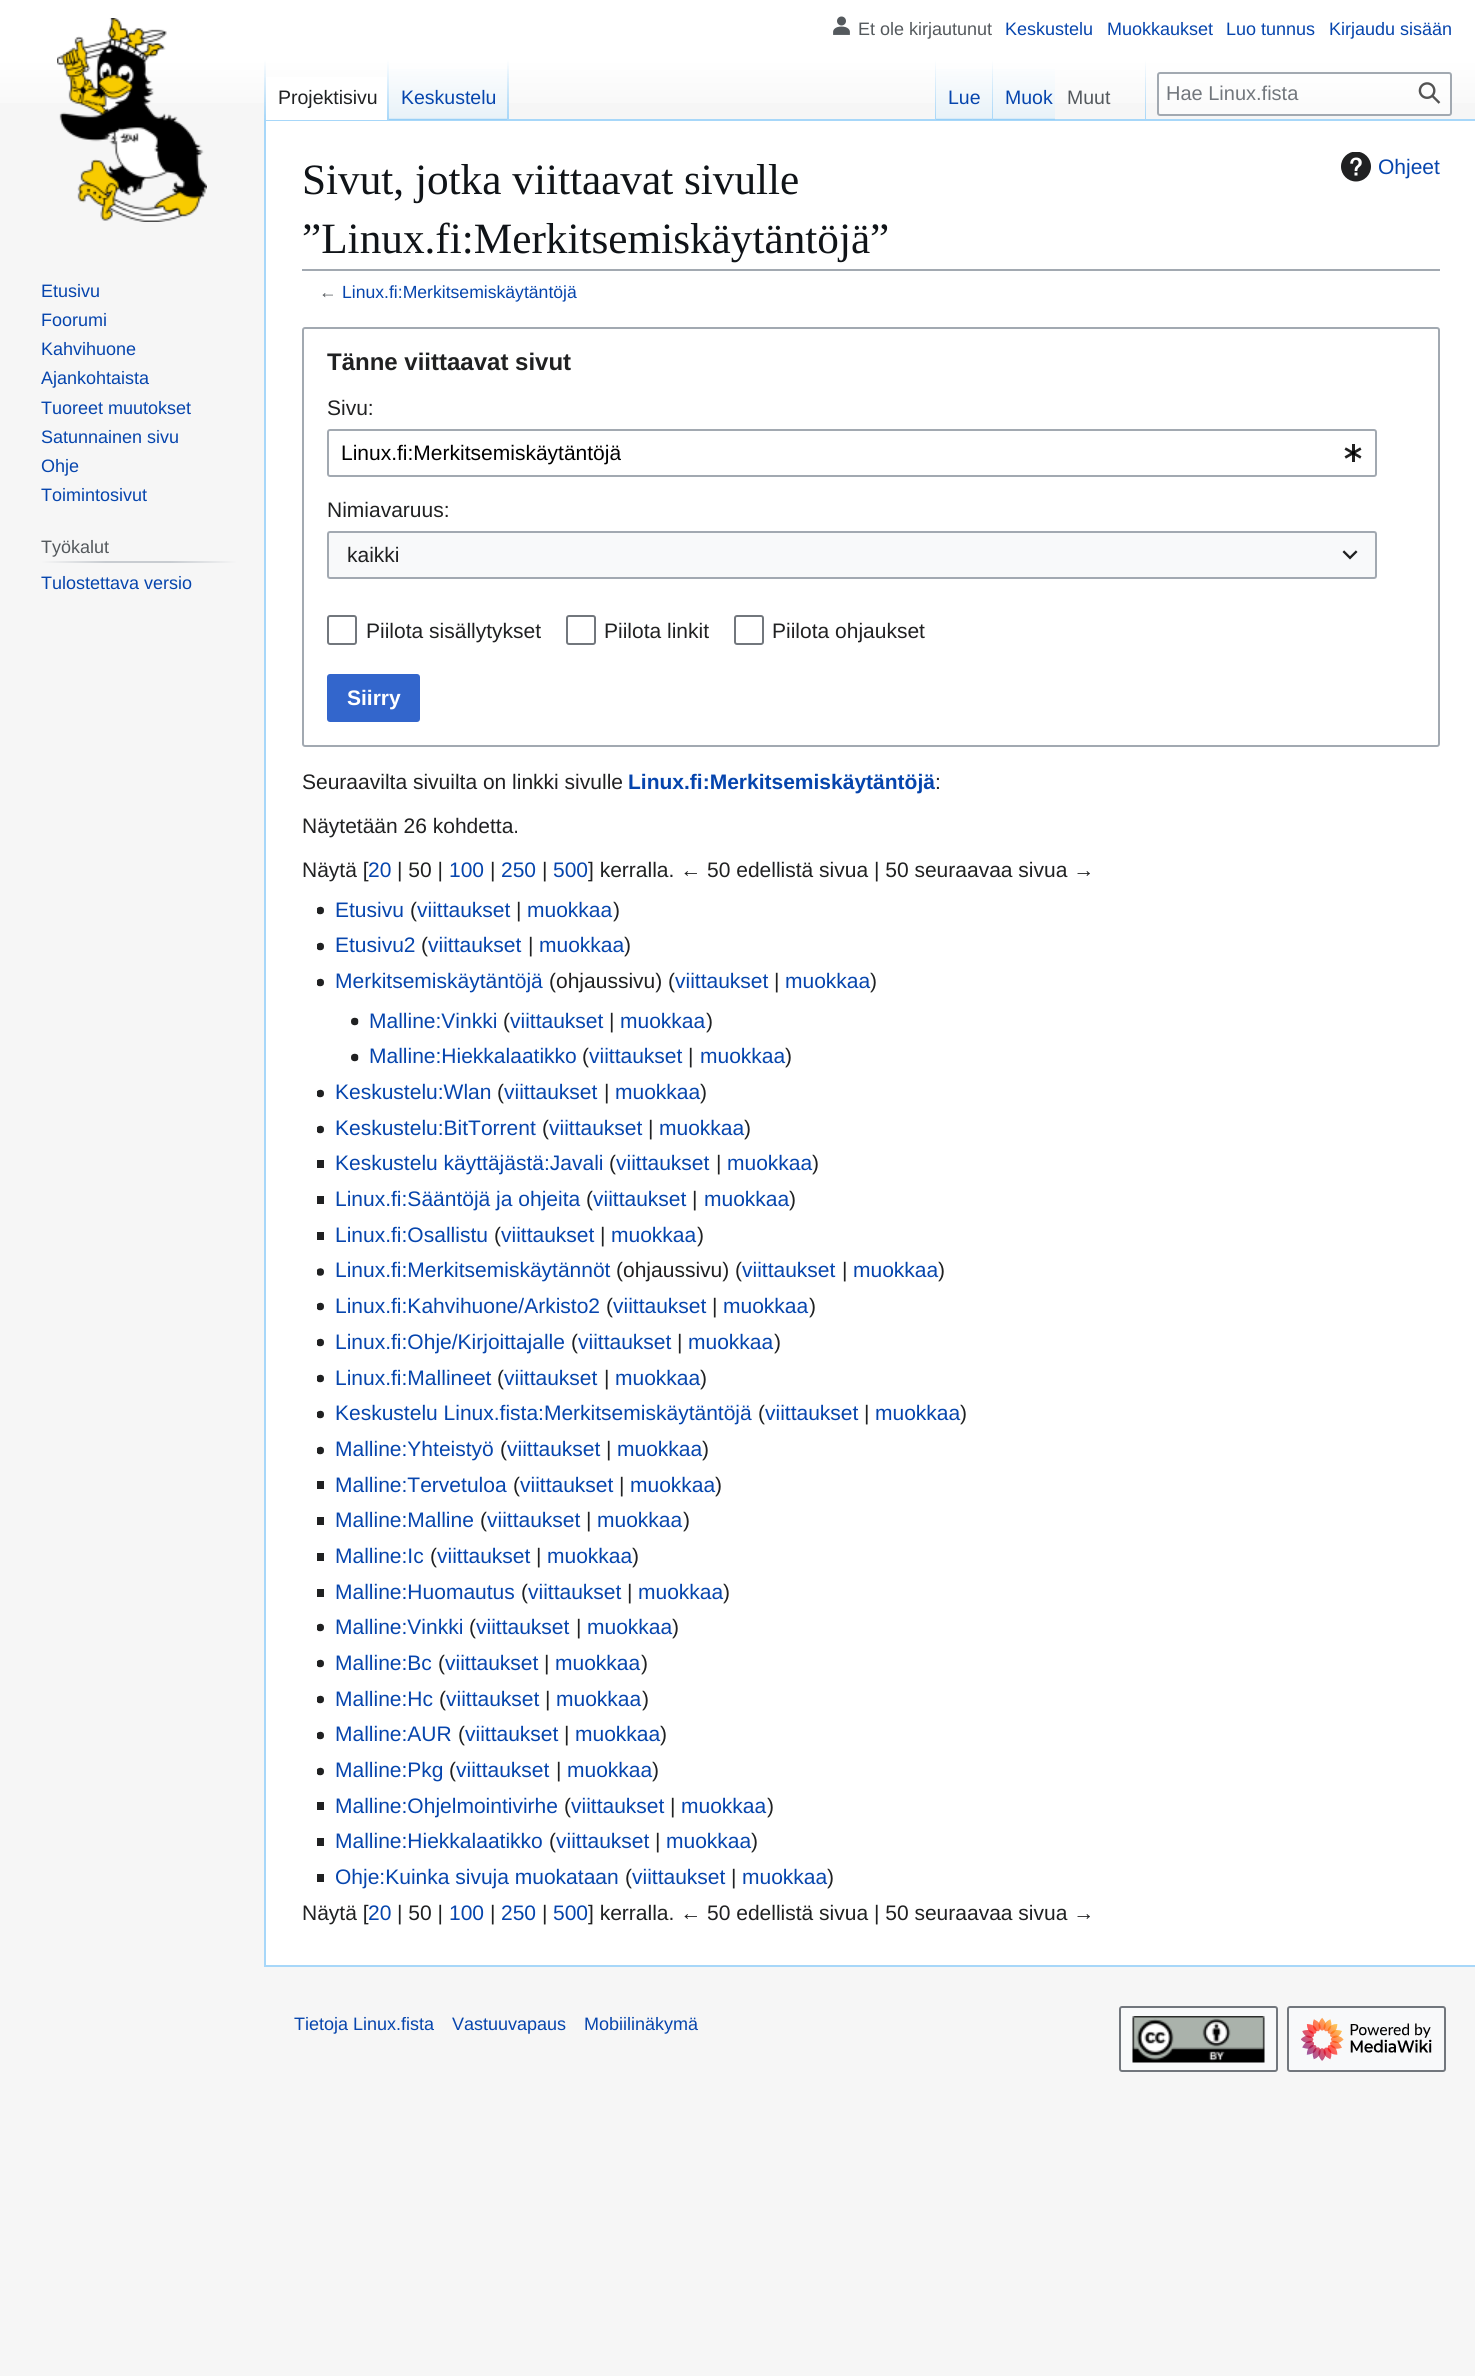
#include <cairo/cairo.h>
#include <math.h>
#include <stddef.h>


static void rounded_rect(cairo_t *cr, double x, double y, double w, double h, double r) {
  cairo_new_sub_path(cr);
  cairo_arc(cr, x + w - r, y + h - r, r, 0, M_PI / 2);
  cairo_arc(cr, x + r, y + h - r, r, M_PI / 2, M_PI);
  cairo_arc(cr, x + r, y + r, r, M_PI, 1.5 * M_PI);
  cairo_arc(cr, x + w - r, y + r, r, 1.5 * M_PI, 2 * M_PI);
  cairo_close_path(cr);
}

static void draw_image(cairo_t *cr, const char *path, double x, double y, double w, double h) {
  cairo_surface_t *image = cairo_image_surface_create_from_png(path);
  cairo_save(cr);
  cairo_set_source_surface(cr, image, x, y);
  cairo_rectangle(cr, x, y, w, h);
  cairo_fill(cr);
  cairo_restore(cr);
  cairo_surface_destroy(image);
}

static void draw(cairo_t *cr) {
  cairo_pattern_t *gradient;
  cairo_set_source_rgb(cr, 246 / 255.0, 246 / 255.0, 246 / 255.0);
  cairo_paint(cr);
  gradient = cairo_pattern_create_linear(738, 0, 738, 120);
  cairo_pattern_add_color_stop_rgba(gradient, 0.5, 1, 1, 1, 1);
  cairo_pattern_add_color_stop_rgba(gradient, 1, 246 / 255.0, 246 / 255.0, 246 / 255.0, 1);
  cairo_set_source(cr, gradient);
  cairo_pattern_destroy(gradient);
  cairo_rectangle(cr, 0, 0, 1475, 103);
  cairo_fill(cr);
  draw_image(cr, "images/1.png", 833, 16, 17, 19);
  cairo_set_source_rgb(cr, 167 / 255.0, 215 / 255.0, 249 / 255.0);
  cairo_rectangle(cr, 264, 119, 1211, 2);
  cairo_fill(cr);
  cairo_rectangle(cr, 264, 1965, 1211, 2);
  cairo_fill(cr);
  cairo_rectangle(cr, 264, 119, 2, 1848);
  cairo_fill(cr);
  gradient = cairo_pattern_create_linear(265, 60, 265, 120);
  cairo_pattern_add_color_stop_rgba(gradient, 0, 167 / 255.0, 215 / 255.0, 249 / 255.0, 0);
  cairo_pattern_add_color_stop_rgba(gradient, 1, 167 / 255.0, 215 / 255.0, 249 / 255.0, 1);
  cairo_set_source(cr, gradient);
  cairo_pattern_destroy(gradient);
  cairo_rectangle(cr, 264, 60, 2, 60);
  cairo_fill(cr);
  cairo_set_source_rgb(cr, 1, 1, 1);
  cairo_rectangle(cr, 266, 77, 121, 43);
  cairo_fill(cr);
  gradient = cairo_pattern_create_linear(388, 60, 388, 120);
  cairo_pattern_add_color_stop_rgba(gradient, 0, 1, 1, 1, 1);
  cairo_pattern_add_color_stop_rgba(gradient, 1, 167 / 255.0, 215 / 255.0, 249 / 255.0, 1);
  cairo_set_source(cr, gradient);
  cairo_pattern_destroy(gradient);
  cairo_rectangle(cr, 387, 60, 2, 60);
  cairo_fill(cr);
  gradient = cairo_pattern_create_linear(449, 120, 449, 60);
  cairo_pattern_add_color_stop_rgba(gradient, 0, 119 / 255.0, 193 / 255.0, 246 / 255.0, 1);
  cairo_pattern_add_color_stop_rgba(gradient, 0.03, 232 / 255.0, 242 / 255.0, 248 / 255.0, 1);
  cairo_pattern_add_color_stop_rgba(gradient, 1, 1, 1, 1, 1);
  cairo_set_source(cr, gradient);
  cairo_pattern_destroy(gradient);
  cairo_rectangle(cr, 389, 69, 120, 51);
  cairo_fill(cr);
  gradient = cairo_pattern_create_linear(508, 60, 508, 120);
  cairo_pattern_add_color_stop_rgba(gradient, 0, 167 / 255.0, 215 / 255.0, 249 / 255.0, 0);
  cairo_pattern_add_color_stop_rgba(gradient, 1, 167 / 255.0, 215 / 255.0, 249 / 255.0, 1);
  cairo_set_source(cr, gradient);
  cairo_pattern_destroy(gradient);
  cairo_rectangle(cr, 507, 60, 2, 60);
  cairo_fill(cr);
  gradient = cairo_pattern_create_linear(935, 60, 935, 120);
  cairo_pattern_add_color_stop_rgba(gradient, 0, 167 / 255.0, 215 / 255.0, 249 / 255.0, 0);
  cairo_pattern_add_color_stop_rgba(gradient, 1, 167 / 255.0, 215 / 255.0, 249 / 255.0, 1);
  cairo_set_source(cr, gradient);
  cairo_pattern_destroy(gradient);
  cairo_rectangle(cr, 935, 60, 1, 60);
  cairo_fill(cr);
  gradient = cairo_pattern_create_linear(965, 120, 965, 60);
  cairo_pattern_add_color_stop_rgba(gradient, 0, 119 / 255.0, 193 / 255.0, 246 / 255.0, 1);
  cairo_pattern_add_color_stop_rgba(gradient, 0.03, 232 / 255.0, 242 / 255.0, 248 / 255.0, 1);
  cairo_pattern_add_color_stop_rgba(gradient, 1, 1, 1, 1, 1);
  cairo_set_source(cr, gradient);
  cairo_pattern_destroy(gradient);
  cairo_rectangle(cr, 936, 69, 57, 51);
  cairo_fill(cr);
  gradient = cairo_pattern_create_linear(992, 60, 992, 120);
  cairo_pattern_add_color_stop_rgba(gradient, 0, 167 / 255.0, 215 / 255.0, 249 / 255.0, 0);
  cairo_pattern_add_color_stop_rgba(gradient, 1, 167 / 255.0, 215 / 255.0, 249 / 255.0, 1);
  cairo_set_source(cr, gradient);
  cairo_pattern_destroy(gradient);
  cairo_rectangle(cr, 992, 60, 1, 60);
  cairo_fill(cr);
  gradient = cairo_pattern_create_linear(1024, 120, 1024, 60);
  cairo_pattern_add_color_stop_rgba(gradient, 0, 119 / 255.0, 193 / 255.0, 246 / 255.0, 1);
  cairo_pattern_add_color_stop_rgba(gradient, 0.03, 232 / 255.0, 242 / 255.0, 248 / 255.0, 1);
  cairo_pattern_add_color_stop_rgba(gradient, 1, 1, 1, 1, 1);
  cairo_set_source(cr, gradient);
  cairo_pattern_destroy(gradient);
  cairo_rectangle(cr, 993, 69, 62, 51);
  cairo_fill(cr);
  gradient = cairo_pattern_create_linear(1145, 60, 1145, 120);
  cairo_pattern_add_color_stop_rgba(gradient, 0, 167 / 255.0, 215 / 255.0, 249 / 255.0, 0);
  cairo_pattern_add_color_stop_rgba(gradient, 1, 167 / 255.0, 215 / 255.0, 249 / 255.0, 1);
  cairo_set_source(cr, gradient);
  cairo_pattern_destroy(gradient);
  cairo_rectangle(cr, 1145, 60, 1, 60);
  cairo_fill(cr);
  cairo_set_source_rgba(cr, 1, 1, 1, 0.5);
  rounded_rect(cr, 1158, 73, 293, 42, 2);
  cairo_fill_preserve(cr);
  cairo_set_source_rgb(cr, 162 / 255.0, 169 / 255.0, 177 / 255.0);
  cairo_stroke(cr);
  draw_image(cr, "images/2.png", 1418, 82, 23, 22);
  draw_image(cr, "images/3.png", 57, 18, 150, 204);
  gradient = cairo_pattern_create_linear(41, 562, 237, 562);
  cairo_pattern_add_color_stop_rgba(gradient, 0, 246 / 255.0, 246 / 255.0, 246 / 255.0, 1);
  cairo_pattern_add_color_stop_rgba(gradient, 0.33, 200 / 255.0, 204 / 255.0, 209 / 255.0, 1);
  cairo_pattern_add_color_stop_rgba(gradient, 0.66, 200 / 255.0, 204 / 255.0, 209 / 255.0, 1);
  cairo_pattern_add_color_stop_rgba(gradient, 1, 246 / 255.0, 246 / 255.0, 246 / 255.0, 1);
  cairo_set_source(cr, gradient);
  cairo_pattern_destroy(gradient);
  cairo_rectangle(cr, 41, 561, 196, 2);
  cairo_fill(cr);
  cairo_set_source_rgb(cr, 1, 1, 1);
  cairo_rectangle(cr, 266, 121, 1209, 1844);
  cairo_fill(cr);
  cairo_set_source_rgb(cr, 162 / 255.0, 169 / 255.0, 177 / 255.0);
  cairo_rectangle(cr, 302, 269, 1138, 2);
  cairo_fill(cr);
  draw_image(cr, "images/4.png", 1341, 152, 30, 30);
  rounded_rect(cr, 303, 328, 1136, 418, 2);
  cairo_stroke(cr);
  rounded_rect(cr, 328, 430, 1048, 46, 2);
  cairo_stroke(cr);
  draw_image(cr, "images/5.png", 1344, 444, 18, 18);
  cairo_set_source_rgb(cr, 248 / 255.0, 249 / 255.0, 250 / 255.0);
  cairo_rectangle(cr, 327, 531, 1050, 48);
  cairo_fill(cr);
  rounded_rect(cr, 328, 532, 1048, 46, 2);
  cairo_set_source_rgb(cr, 162 / 255.0, 169 / 255.0, 177 / 255.0);
  cairo_stroke(cr);
  draw_image(cr, "images/6.png", 1342, 550, 16, 10);
  rounded_rect(cr, 328, 616, 28, 28, 2);
  cairo_set_source_rgb(cr, 114 / 255.0, 119 / 255.0, 125 / 255.0);
  cairo_stroke(cr);
  rounded_rect(cr, 567, 616, 28, 28, 2);
  cairo_stroke(cr);
  rounded_rect(cr, 735, 616, 28, 28, 2);
  cairo_stroke(cr);
  cairo_set_source_rgb(cr, 51 / 255.0, 102 / 255.0, 204 / 255.0);
  rounded_rect(cr, 328, 675, 91, 46, 2);
  cairo_fill_preserve(cr);
  cairo_stroke(cr);
  draw_image(cr, "images/7.png", 317, 906, 7, 9);
  draw_image(cr, "images/7.png", 317, 942, 7, 9);
  draw_image(cr, "images/7.png", 317, 978, 7, 9);
  draw_image(cr, "images/8.png", 351, 1017, 8, 9);
  draw_image(cr, "images/8.png", 351, 1053, 8, 9);
  draw_image(cr, "images/7.png", 317, 1089, 7, 9);
  draw_image(cr, "images/7.png", 317, 1125, 7, 9);
  cairo_set_source_rgb(cr, 32 / 255.0, 33 / 255.0, 34 / 255.0);
  cairo_rectangle(cr, 317, 1160, 7, 8);
  cairo_fill(cr);
  cairo_rectangle(cr, 317, 1196, 7, 8);
  cairo_fill(cr);
  cairo_rectangle(cr, 317, 1232, 7, 8);
  cairo_fill(cr);
  draw_image(cr, "images/9.png", 317, 1268, 7, 8);
  draw_image(cr, "images/7.png", 317, 1302, 7, 9);
  draw_image(cr, "images/7.png", 317, 1338, 7, 9);
  draw_image(cr, "images/7.png", 317, 1374, 7, 9);
  draw_image(cr, "images/7.png", 317, 1410, 7, 9);
  draw_image(cr, "images/7.png", 317, 1446, 7, 9);
  cairo_rectangle(cr, 317, 1481, 7, 8);
  cairo_fill(cr);
  cairo_rectangle(cr, 317, 1517, 7, 8);
  cairo_fill(cr);
  cairo_rectangle(cr, 317, 1553, 7, 8);
  cairo_fill(cr);
  cairo_rectangle(cr, 317, 1589, 7, 8);
  cairo_fill(cr);
  draw_image(cr, "images/7.png", 317, 1623, 7, 9);
  draw_image(cr, "images/7.png", 317, 1659, 7, 9);
  draw_image(cr, "images/7.png", 317, 1695, 7, 9);
  draw_image(cr, "images/7.png", 317, 1731, 7, 9);
  draw_image(cr, "images/7.png", 317, 1767, 7, 9);
  cairo_rectangle(cr, 317, 1802, 7, 8);
  cairo_fill(cr);
  cairo_rectangle(cr, 317, 1838, 7, 8);
  cairo_fill(cr);
  cairo_rectangle(cr, 317, 1874, 7, 8);
  cairo_fill(cr);
  cairo_set_source_rgb(cr, 248 / 255.0, 249 / 255.0, 250 / 255.0);
  rounded_rect(cr, 1120, 2007, 157, 64, 2);
  cairo_fill_preserve(cr);
  cairo_set_source_rgb(cr, 114 / 255.0, 119 / 255.0, 125 / 255.0);
  cairo_stroke(cr);
  draw_image(cr, "images/10.png", 1132, 2016, 133, 47);
  cairo_set_source_rgb(cr, 248 / 255.0, 249 / 255.0, 250 / 255.0);
  rounded_rect(cr, 1288, 2007, 157, 64, 2);
  cairo_fill_preserve(cr);
  cairo_set_source_rgb(cr, 114 / 255.0, 119 / 255.0, 125 / 255.0);
  cairo_stroke(cr);
  draw_image(cr, "images/11.png", 1301, 2017, 131, 44);
  cairo_select_font_face(cr, "Liberation Sans", CAIRO_FONT_SLANT_NORMAL, CAIRO_FONT_WEIGHT_NORMAL);
  cairo_set_font_size(cr, 18);
  cairo_set_source_rgb(cr, 84 / 255.0, 89 / 255.0, 93 / 255.0);
  cairo_move_to(cr, 858, 35);
  cairo_show_text(cr, "Et ole kirjautunut");
  cairo_set_source_rgb(cr, 6 / 255.0, 69 / 255.0, 173 / 255.0);
  cairo_move_to(cr, 1005, 35);
  cairo_show_text(cr, "Keskustelu");
  cairo_move_to(cr, 1107, 35);
  cairo_show_text(cr, "Muokkaukset");
  cairo_move_to(cr, 1226, 35);
  cairo_show_text(cr, "Luo tunnus");
  cairo_move_to(cr, 1329, 35);
  cairo_show_text(cr, "Kirjaudu sisään");
  cairo_set_font_size(cr, 19.5);
  cairo_set_source_rgb(cr, 32 / 255.0, 33 / 255.0, 34 / 255.0);
  cairo_move_to(cr, 278, 104);
  cairo_show_text(cr, "Projektisivu");
  cairo_set_source_rgb(cr, 6 / 255.0, 69 / 255.0, 173 / 255.0);
  cairo_move_to(cr, 401, 104);
  cairo_show_text(cr, "Keskustelu");
  cairo_move_to(cr, 948, 104);
  cairo_show_text(cr, "Lue");
  cairo_move_to(cr, 1005, 104);
  cairo_show_text(cr, "Muok");
  cairo_set_source_rgb(cr, 84 / 255.0, 89 / 255.0, 93 / 255.0);
  cairo_move_to(cr, 1067, 104);
  cairo_show_text(cr, "Muut");
  cairo_set_font_size(cr, 20);
  cairo_set_source_rgb(cr, 114 / 255.0, 119 / 255.0, 125 / 255.0);
  cairo_move_to(cr, 1166, 100);
  cairo_show_text(cr, "Hae Linux.fista");
  cairo_set_font_size(cr, 18);
  cairo_set_source_rgb(cr, 6 / 255.0, 69 / 255.0, 173 / 255.0);
  cairo_move_to(cr, 41, 297);
  cairo_show_text(cr, "Etusivu");
  cairo_move_to(cr, 41, 326);
  cairo_show_text(cr, "Foorumi");
  cairo_move_to(cr, 41, 355);
  cairo_show_text(cr, "Kahvihuone");
  cairo_move_to(cr, 41, 384);
  cairo_show_text(cr, "Ajankohtaista");
  cairo_move_to(cr, 41, 414);
  cairo_show_text(cr, "Tuoreet muutokset");
  cairo_move_to(cr, 41, 443);
  cairo_show_text(cr, "Satunnainen sivu");
  cairo_move_to(cr, 41, 472);
  cairo_show_text(cr, "Ohje");
  cairo_move_to(cr, 41, 501);
  cairo_show_text(cr, "Toimintosivut");
  cairo_set_source_rgb(cr, 84 / 255.0, 89 / 255.0, 93 / 255.0);
  cairo_move_to(cr, 41, 553);
  cairo_show_text(cr, "Työkalut");
  cairo_set_source_rgb(cr, 6 / 255.0, 69 / 255.0, 173 / 255.0);
  cairo_move_to(cr, 41, 589);
  cairo_show_text(cr, "Tulostettava versio");
  cairo_select_font_face(cr, "Liberation Serif", CAIRO_FONT_SLANT_NORMAL, CAIRO_FONT_WEIGHT_NORMAL);
  cairo_set_font_size(cr, 43.25);
  cairo_set_source_rgb(cr, 16 / 255.0, 20 / 255.0, 24 / 255.0);
  cairo_move_to(cr, 302, 194);
  cairo_show_text(cr, "Sivut, jotka viittaavat sivulle");
  cairo_move_to(cr, 302, 253);
  cairo_show_text(cr, "”Linux.fi:Merkitsemiskäytäntöjä”");
  cairo_select_font_face(cr, "Liberation Sans", CAIRO_FONT_SLANT_NORMAL, CAIRO_FONT_WEIGHT_NORMAL);
  cairo_set_font_size(cr, 21);
  cairo_set_source_rgb(cr, 6 / 255.0, 69 / 255.0, 173 / 255.0);
  cairo_move_to(cr, 1378, 174);
  cairo_show_text(cr, "Ohjeet");
  cairo_set_font_size(cr, 17.6);
  cairo_set_source_rgb(cr, 84 / 255.0, 89 / 255.0, 93 / 255.0);
  cairo_move_to(cr, 319, 298);
  cairo_show_text(cr, "←");
  cairo_set_source_rgb(cr, 6 / 255.0, 69 / 255.0, 173 / 255.0);
  cairo_move_to(cr, 342, 298);
  cairo_show_text(cr, "Linux.fi:Merkitsemiskäytäntöjä");
  cairo_select_font_face(cr, "Liberation Sans", CAIRO_FONT_SLANT_NORMAL, CAIRO_FONT_WEIGHT_BOLD);
  cairo_set_font_size(cr, 24);
  cairo_set_source_rgb(cr, 32 / 255.0, 33 / 255.0, 34 / 255.0);
  cairo_move_to(cr, 327, 370);
  cairo_show_text(cr, "Tänne viittaavat sivut");
  cairo_select_font_face(cr, "Liberation Sans", CAIRO_FONT_SLANT_NORMAL, CAIRO_FONT_WEIGHT_NORMAL);
  cairo_set_font_size(cr, 21);
  cairo_move_to(cr, 327, 415);
  cairo_show_text(cr, "Sivu:");
  cairo_set_source_rgb(cr, 0, 0, 0);
  cairo_move_to(cr, 341, 460);
  cairo_show_text(cr, "Linux.fi:Merkitsemiskäytäntöjä");
  cairo_set_source_rgb(cr, 32 / 255.0, 33 / 255.0, 34 / 255.0);
  cairo_move_to(cr, 327, 517);
  cairo_show_text(cr, "Nimiavaruus:");
  cairo_move_to(cr, 347, 562);
  cairo_show_text(cr, "kaikki");
  cairo_move_to(cr, 366, 638);
  cairo_show_text(cr, "Piilota sisällytykset");
  cairo_move_to(cr, 604, 638);
  cairo_show_text(cr, "Piilota linkit");
  cairo_move_to(cr, 772, 638);
  cairo_show_text(cr, "Piilota ohjaukset");
  cairo_select_font_face(cr, "Liberation Sans", CAIRO_FONT_SLANT_NORMAL, CAIRO_FONT_WEIGHT_BOLD);
  cairo_set_source_rgb(cr, 1, 1, 1);
  cairo_move_to(cr, 347, 705);
  cairo_show_text(cr, "Siirry");
  cairo_select_font_face(cr, "Liberation Sans", CAIRO_FONT_SLANT_NORMAL, CAIRO_FONT_WEIGHT_NORMAL);
  cairo_set_source_rgb(cr, 32 / 255.0, 33 / 255.0, 34 / 255.0);
  cairo_move_to(cr, 302, 789);
  cairo_show_text(cr, "Seuraavilta sivuilta on linkki sivulle");
  cairo_select_font_face(cr, "Liberation Sans", CAIRO_FONT_SLANT_NORMAL, CAIRO_FONT_WEIGHT_BOLD);
  cairo_set_source_rgb(cr, 6 / 255.0, 69 / 255.0, 173 / 255.0);
  cairo_move_to(cr, 628, 789);
  cairo_show_text(cr, "Linux.fi:Merkitsemiskäytäntöjä");
  cairo_select_font_face(cr, "Liberation Sans", CAIRO_FONT_SLANT_NORMAL, CAIRO_FONT_WEIGHT_NORMAL);
  cairo_set_source_rgb(cr, 32 / 255.0, 33 / 255.0, 34 / 255.0);
  cairo_move_to(cr, 935, 789);
  cairo_show_text(cr, ":");
  cairo_move_to(cr, 302, 833);
  cairo_show_text(cr, "Näytetään 26 kohdetta.");
  cairo_move_to(cr, 302, 877);
  cairo_show_text(cr, "Näytä [");
  cairo_set_source_rgb(cr, 6 / 255.0, 69 / 255.0, 173 / 255.0);
  cairo_move_to(cr, 368, 877);
  cairo_show_text(cr, "20");
  cairo_set_source_rgb(cr, 32 / 255.0, 33 / 255.0, 34 / 255.0);
  cairo_move_to(cr, 397, 877);
  cairo_show_text(cr, "| 50 |");
  cairo_set_source_rgb(cr, 6 / 255.0, 69 / 255.0, 173 / 255.0);
  cairo_move_to(cr, 449, 877);
  cairo_show_text(cr, "100");
  cairo_set_source_rgb(cr, 32 / 255.0, 33 / 255.0, 34 / 255.0);
  cairo_move_to(cr, 490, 877);
  cairo_show_text(cr, "|");
  cairo_set_source_rgb(cr, 6 / 255.0, 69 / 255.0, 173 / 255.0);
  cairo_move_to(cr, 501, 877);
  cairo_show_text(cr, "250");
  cairo_set_source_rgb(cr, 32 / 255.0, 33 / 255.0, 34 / 255.0);
  cairo_move_to(cr, 542, 877);
  cairo_show_text(cr, "|");
  cairo_set_source_rgb(cr, 6 / 255.0, 69 / 255.0, 173 / 255.0);
  cairo_move_to(cr, 553, 877);
  cairo_show_text(cr, "500");
  cairo_set_source_rgb(cr, 32 / 255.0, 33 / 255.0, 34 / 255.0);
  cairo_move_to(cr, 588, 877);
  cairo_show_text(cr, "] kerralla. ← 50 edellistä sivua | 50 seuraavaa sivua →");
  cairo_set_source_rgb(cr, 6 / 255.0, 69 / 255.0, 173 / 255.0);
  cairo_move_to(cr, 335, 917);
  cairo_show_text(cr, "Etusivu");
  cairo_set_source_rgb(cr, 32 / 255.0, 33 / 255.0, 34 / 255.0);
  cairo_move_to(cr, 410, 917);
  cairo_show_text(cr, "(");
  cairo_set_source_rgb(cr, 6 / 255.0, 69 / 255.0, 173 / 255.0);
  cairo_move_to(cr, 417, 917);
  cairo_show_text(cr, "viittaukset");
  cairo_set_source_rgb(cr, 32 / 255.0, 33 / 255.0, 34 / 255.0);
  cairo_move_to(cr, 516, 917);
  cairo_show_text(cr, "|");
  cairo_set_source_rgb(cr, 6 / 255.0, 69 / 255.0, 173 / 255.0);
  cairo_move_to(cr, 527, 917);
  cairo_show_text(cr, "muokkaa");
  cairo_set_source_rgb(cr, 32 / 255.0, 33 / 255.0, 34 / 255.0);
  cairo_move_to(cr, 613, 917);
  cairo_show_text(cr, ")");
  cairo_set_source_rgb(cr, 6 / 255.0, 69 / 255.0, 173 / 255.0);
  cairo_move_to(cr, 335, 952);
  cairo_show_text(cr, "Etusivu2");
  cairo_set_source_rgb(cr, 32 / 255.0, 33 / 255.0, 34 / 255.0);
  cairo_move_to(cr, 421, 952);
  cairo_show_text(cr, "(");
  cairo_set_source_rgb(cr, 6 / 255.0, 69 / 255.0, 173 / 255.0);
  cairo_move_to(cr, 428, 952);
  cairo_show_text(cr, "viittaukset");
  cairo_set_source_rgb(cr, 32 / 255.0, 33 / 255.0, 34 / 255.0);
  cairo_move_to(cr, 528, 952);
  cairo_show_text(cr, "|");
  cairo_set_source_rgb(cr, 6 / 255.0, 69 / 255.0, 173 / 255.0);
  cairo_move_to(cr, 539, 952);
  cairo_show_text(cr, "muokkaa");
  cairo_set_source_rgb(cr, 32 / 255.0, 33 / 255.0, 34 / 255.0);
  cairo_move_to(cr, 624, 952);
  cairo_show_text(cr, ")");
  cairo_set_source_rgb(cr, 6 / 255.0, 69 / 255.0, 173 / 255.0);
  cairo_move_to(cr, 335, 988);
  cairo_show_text(cr, "Merkitsemiskäytäntöjä");
  cairo_set_source_rgb(cr, 32 / 255.0, 33 / 255.0, 34 / 255.0);
  cairo_move_to(cr, 549, 988);
  cairo_show_text(cr, "(ohjaussivu) (");
  cairo_set_source_rgb(cr, 6 / 255.0, 69 / 255.0, 173 / 255.0);
  cairo_move_to(cr, 675, 988);
  cairo_show_text(cr, "viittaukset");
  cairo_set_source_rgb(cr, 32 / 255.0, 33 / 255.0, 34 / 255.0);
  cairo_move_to(cr, 774, 988);
  cairo_show_text(cr, "|");
  cairo_set_source_rgb(cr, 6 / 255.0, 69 / 255.0, 173 / 255.0);
  cairo_move_to(cr, 785, 988);
  cairo_show_text(cr, "muokkaa");
  cairo_set_source_rgb(cr, 32 / 255.0, 33 / 255.0, 34 / 255.0);
  cairo_move_to(cr, 870, 988);
  cairo_show_text(cr, ")");
  cairo_set_source_rgb(cr, 6 / 255.0, 69 / 255.0, 173 / 255.0);
  cairo_move_to(cr, 369, 1028);
  cairo_show_text(cr, "Malline:Vinkki");
  cairo_set_source_rgb(cr, 32 / 255.0, 33 / 255.0, 34 / 255.0);
  cairo_move_to(cr, 503, 1028);
  cairo_show_text(cr, "(");
  cairo_set_source_rgb(cr, 6 / 255.0, 69 / 255.0, 173 / 255.0);
  cairo_move_to(cr, 510, 1028);
  cairo_show_text(cr, "viittaukset");
  cairo_set_source_rgb(cr, 32 / 255.0, 33 / 255.0, 34 / 255.0);
  cairo_move_to(cr, 609, 1028);
  cairo_show_text(cr, "|");
  cairo_set_source_rgb(cr, 6 / 255.0, 69 / 255.0, 173 / 255.0);
  cairo_move_to(cr, 620, 1028);
  cairo_show_text(cr, "muokkaa");
  cairo_set_source_rgb(cr, 32 / 255.0, 33 / 255.0, 34 / 255.0);
  cairo_move_to(cr, 706, 1028);
  cairo_show_text(cr, ")");
  cairo_set_source_rgb(cr, 6 / 255.0, 69 / 255.0, 173 / 255.0);
  cairo_move_to(cr, 369, 1063);
  cairo_show_text(cr, "Malline:Hiekkalaatikko");
  cairo_set_source_rgb(cr, 32 / 255.0, 33 / 255.0, 34 / 255.0);
  cairo_move_to(cr, 582, 1063);
  cairo_show_text(cr, "(");
  cairo_set_source_rgb(cr, 6 / 255.0, 69 / 255.0, 173 / 255.0);
  cairo_move_to(cr, 589, 1063);
  cairo_show_text(cr, "viittaukset");
  cairo_set_source_rgb(cr, 32 / 255.0, 33 / 255.0, 34 / 255.0);
  cairo_move_to(cr, 688, 1063);
  cairo_show_text(cr, "|");
  cairo_set_source_rgb(cr, 6 / 255.0, 69 / 255.0, 173 / 255.0);
  cairo_move_to(cr, 700, 1063);
  cairo_show_text(cr, "muokkaa");
  cairo_set_source_rgb(cr, 32 / 255.0, 33 / 255.0, 34 / 255.0);
  cairo_move_to(cr, 785, 1063);
  cairo_show_text(cr, ")");
  cairo_set_source_rgb(cr, 6 / 255.0, 69 / 255.0, 173 / 255.0);
  cairo_move_to(cr, 335, 1099);
  cairo_show_text(cr, "Keskustelu:Wlan");
  cairo_set_source_rgb(cr, 32 / 255.0, 33 / 255.0, 34 / 255.0);
  cairo_move_to(cr, 497, 1099);
  cairo_show_text(cr, "(");
  cairo_set_source_rgb(cr, 6 / 255.0, 69 / 255.0, 173 / 255.0);
  cairo_move_to(cr, 504, 1099);
  cairo_show_text(cr, "viittaukset");
  cairo_set_source_rgb(cr, 32 / 255.0, 33 / 255.0, 34 / 255.0);
  cairo_move_to(cr, 604, 1099);
  cairo_show_text(cr, "|");
  cairo_set_source_rgb(cr, 6 / 255.0, 69 / 255.0, 173 / 255.0);
  cairo_move_to(cr, 615, 1099);
  cairo_show_text(cr, "muokkaa");
  cairo_set_source_rgb(cr, 32 / 255.0, 33 / 255.0, 34 / 255.0);
  cairo_move_to(cr, 700, 1099);
  cairo_show_text(cr, ")");
  cairo_set_source_rgb(cr, 6 / 255.0, 69 / 255.0, 173 / 255.0);
  cairo_move_to(cr, 335, 1135);
  cairo_show_text(cr, "Keskustelu:BitTorrent");
  cairo_set_source_rgb(cr, 32 / 255.0, 33 / 255.0, 34 / 255.0);
  cairo_move_to(cr, 542, 1135);
  cairo_show_text(cr, "(");
  cairo_set_source_rgb(cr, 6 / 255.0, 69 / 255.0, 173 / 255.0);
  cairo_move_to(cr, 549, 1135);
  cairo_show_text(cr, "viittaukset");
  cairo_set_source_rgb(cr, 32 / 255.0, 33 / 255.0, 34 / 255.0);
  cairo_move_to(cr, 648, 1135);
  cairo_show_text(cr, "|");
  cairo_set_source_rgb(cr, 6 / 255.0, 69 / 255.0, 173 / 255.0);
  cairo_move_to(cr, 659, 1135);
  cairo_show_text(cr, "muokkaa");
  cairo_set_source_rgb(cr, 32 / 255.0, 33 / 255.0, 34 / 255.0);
  cairo_move_to(cr, 744, 1135);
  cairo_show_text(cr, ")");
  cairo_set_source_rgb(cr, 6 / 255.0, 69 / 255.0, 173 / 255.0);
  cairo_move_to(cr, 335, 1170);
  cairo_show_text(cr, "Keskustelu käyttäjästä:Javali");
  cairo_set_source_rgb(cr, 32 / 255.0, 33 / 255.0, 34 / 255.0);
  cairo_move_to(cr, 609, 1170);
  cairo_show_text(cr, "(");
  cairo_set_source_rgb(cr, 6 / 255.0, 69 / 255.0, 173 / 255.0);
  cairo_move_to(cr, 616, 1170);
  cairo_show_text(cr, "viittaukset");
  cairo_set_source_rgb(cr, 32 / 255.0, 33 / 255.0, 34 / 255.0);
  cairo_move_to(cr, 716, 1170);
  cairo_show_text(cr, "|");
  cairo_set_source_rgb(cr, 6 / 255.0, 69 / 255.0, 173 / 255.0);
  cairo_move_to(cr, 727, 1170);
  cairo_show_text(cr, "muokkaa");
  cairo_set_source_rgb(cr, 32 / 255.0, 33 / 255.0, 34 / 255.0);
  cairo_move_to(cr, 812, 1170);
  cairo_show_text(cr, ")");
  cairo_set_source_rgb(cr, 6 / 255.0, 69 / 255.0, 173 / 255.0);
  cairo_move_to(cr, 335, 1206);
  cairo_show_text(cr, "Linux.fi:Sääntöjä ja ohjeita");
  cairo_set_source_rgb(cr, 32 / 255.0, 33 / 255.0, 34 / 255.0);
  cairo_move_to(cr, 586, 1206);
  cairo_show_text(cr, "(");
  cairo_set_source_rgb(cr, 6 / 255.0, 69 / 255.0, 173 / 255.0);
  cairo_move_to(cr, 593, 1206);
  cairo_show_text(cr, "viittaukset");
  cairo_set_source_rgb(cr, 32 / 255.0, 33 / 255.0, 34 / 255.0);
  cairo_move_to(cr, 692, 1206);
  cairo_show_text(cr, "|");
  cairo_set_source_rgb(cr, 6 / 255.0, 69 / 255.0, 173 / 255.0);
  cairo_move_to(cr, 704, 1206);
  cairo_show_text(cr, "muokkaa");
  cairo_set_source_rgb(cr, 32 / 255.0, 33 / 255.0, 34 / 255.0);
  cairo_move_to(cr, 789, 1206);
  cairo_show_text(cr, ")");
  cairo_set_source_rgb(cr, 6 / 255.0, 69 / 255.0, 173 / 255.0);
  cairo_move_to(cr, 335, 1242);
  cairo_show_text(cr, "Linux.fi:Osallistu");
  cairo_set_source_rgb(cr, 32 / 255.0, 33 / 255.0, 34 / 255.0);
  cairo_move_to(cr, 494, 1242);
  cairo_show_text(cr, "(");
  cairo_set_source_rgb(cr, 6 / 255.0, 69 / 255.0, 173 / 255.0);
  cairo_move_to(cr, 501, 1242);
  cairo_show_text(cr, "viittaukset");
  cairo_set_source_rgb(cr, 32 / 255.0, 33 / 255.0, 34 / 255.0);
  cairo_move_to(cr, 600, 1242);
  cairo_show_text(cr, "|");
  cairo_set_source_rgb(cr, 6 / 255.0, 69 / 255.0, 173 / 255.0);
  cairo_move_to(cr, 611, 1242);
  cairo_show_text(cr, "muokkaa");
  cairo_set_source_rgb(cr, 32 / 255.0, 33 / 255.0, 34 / 255.0);
  cairo_move_to(cr, 697, 1242);
  cairo_show_text(cr, ")");
  cairo_set_source_rgb(cr, 6 / 255.0, 69 / 255.0, 173 / 255.0);
  cairo_move_to(cr, 335, 1277);
  cairo_show_text(cr, "Linux.fi:Merkitsemiskäytännöt");
  cairo_set_source_rgb(cr, 32 / 255.0, 33 / 255.0, 34 / 255.0);
  cairo_move_to(cr, 616, 1277);
  cairo_show_text(cr, "(ohjaussivu) (");
  cairo_set_source_rgb(cr, 6 / 255.0, 69 / 255.0, 173 / 255.0);
  cairo_move_to(cr, 742, 1277);
  cairo_show_text(cr, "viittaukset");
  cairo_set_source_rgb(cr, 32 / 255.0, 33 / 255.0, 34 / 255.0);
  cairo_move_to(cr, 842, 1277);
  cairo_show_text(cr, "|");
  cairo_set_source_rgb(cr, 6 / 255.0, 69 / 255.0, 173 / 255.0);
  cairo_move_to(cr, 853, 1277);
  cairo_show_text(cr, "muokkaa");
  cairo_set_source_rgb(cr, 32 / 255.0, 33 / 255.0, 34 / 255.0);
  cairo_move_to(cr, 938, 1277);
  cairo_show_text(cr, ")");
  cairo_set_source_rgb(cr, 6 / 255.0, 69 / 255.0, 173 / 255.0);
  cairo_move_to(cr, 335, 1313);
  cairo_show_text(cr, "Linux.fi:Kahvihuone/Arkisto2");
  cairo_set_source_rgb(cr, 32 / 255.0, 33 / 255.0, 34 / 255.0);
  cairo_move_to(cr, 606, 1313);
  cairo_show_text(cr, "(");
  cairo_set_source_rgb(cr, 6 / 255.0, 69 / 255.0, 173 / 255.0);
  cairo_move_to(cr, 613, 1313);
  cairo_show_text(cr, "viittaukset");
  cairo_set_source_rgb(cr, 32 / 255.0, 33 / 255.0, 34 / 255.0);
  cairo_move_to(cr, 712, 1313);
  cairo_show_text(cr, "|");
  cairo_set_source_rgb(cr, 6 / 255.0, 69 / 255.0, 173 / 255.0);
  cairo_move_to(cr, 723, 1313);
  cairo_show_text(cr, "muokkaa");
  cairo_set_source_rgb(cr, 32 / 255.0, 33 / 255.0, 34 / 255.0);
  cairo_move_to(cr, 809, 1313);
  cairo_show_text(cr, ")");
  cairo_set_source_rgb(cr, 6 / 255.0, 69 / 255.0, 173 / 255.0);
  cairo_move_to(cr, 335, 1349);
  cairo_show_text(cr, "Linux.fi:Ohje/Kirjoittajalle");
  cairo_set_source_rgb(cr, 32 / 255.0, 33 / 255.0, 34 / 255.0);
  cairo_move_to(cr, 571, 1349);
  cairo_show_text(cr, "(");
  cairo_set_source_rgb(cr, 6 / 255.0, 69 / 255.0, 173 / 255.0);
  cairo_move_to(cr, 578, 1349);
  cairo_show_text(cr, "viittaukset");
  cairo_set_source_rgb(cr, 32 / 255.0, 33 / 255.0, 34 / 255.0);
  cairo_move_to(cr, 677, 1349);
  cairo_show_text(cr, "|");
  cairo_set_source_rgb(cr, 6 / 255.0, 69 / 255.0, 173 / 255.0);
  cairo_move_to(cr, 688, 1349);
  cairo_show_text(cr, "muokkaa");
  cairo_set_source_rgb(cr, 32 / 255.0, 33 / 255.0, 34 / 255.0);
  cairo_move_to(cr, 774, 1349);
  cairo_show_text(cr, ")");
  cairo_set_source_rgb(cr, 6 / 255.0, 69 / 255.0, 173 / 255.0);
  cairo_move_to(cr, 335, 1385);
  cairo_show_text(cr, "Linux.fi:Mallineet");
  cairo_set_source_rgb(cr, 32 / 255.0, 33 / 255.0, 34 / 255.0);
  cairo_move_to(cr, 497, 1385);
  cairo_show_text(cr, "(");
  cairo_set_source_rgb(cr, 6 / 255.0, 69 / 255.0, 173 / 255.0);
  cairo_move_to(cr, 504, 1385);
  cairo_show_text(cr, "viittaukset");
  cairo_set_source_rgb(cr, 32 / 255.0, 33 / 255.0, 34 / 255.0);
  cairo_move_to(cr, 604, 1385);
  cairo_show_text(cr, "|");
  cairo_set_source_rgb(cr, 6 / 255.0, 69 / 255.0, 173 / 255.0);
  cairo_move_to(cr, 615, 1385);
  cairo_show_text(cr, "muokkaa");
  cairo_set_source_rgb(cr, 32 / 255.0, 33 / 255.0, 34 / 255.0);
  cairo_move_to(cr, 700, 1385);
  cairo_show_text(cr, ")");
  cairo_set_source_rgb(cr, 6 / 255.0, 69 / 255.0, 173 / 255.0);
  cairo_move_to(cr, 335, 1420);
  cairo_show_text(cr, "Keskustelu Linux.fista:Merkitsemiskäytäntöjä");
  cairo_set_source_rgb(cr, 32 / 255.0, 33 / 255.0, 34 / 255.0);
  cairo_move_to(cr, 758, 1420);
  cairo_show_text(cr, "(");
  cairo_set_source_rgb(cr, 6 / 255.0, 69 / 255.0, 173 / 255.0);
  cairo_move_to(cr, 765, 1420);
  cairo_show_text(cr, "viittaukset");
  cairo_set_source_rgb(cr, 32 / 255.0, 33 / 255.0, 34 / 255.0);
  cairo_move_to(cr, 864, 1420);
  cairo_show_text(cr, "|");
  cairo_set_source_rgb(cr, 6 / 255.0, 69 / 255.0, 173 / 255.0);
  cairo_move_to(cr, 875, 1420);
  cairo_show_text(cr, "muokkaa");
  cairo_set_source_rgb(cr, 32 / 255.0, 33 / 255.0, 34 / 255.0);
  cairo_move_to(cr, 960, 1420);
  cairo_show_text(cr, ")");
  cairo_set_source_rgb(cr, 6 / 255.0, 69 / 255.0, 173 / 255.0);
  cairo_move_to(cr, 335, 1456);
  cairo_show_text(cr, "Malline:Yhteistyö");
  cairo_set_source_rgb(cr, 32 / 255.0, 33 / 255.0, 34 / 255.0);
  cairo_move_to(cr, 500, 1456);
  cairo_show_text(cr, "(");
  cairo_set_source_rgb(cr, 6 / 255.0, 69 / 255.0, 173 / 255.0);
  cairo_move_to(cr, 507, 1456);
  cairo_show_text(cr, "viittaukset");
  cairo_set_source_rgb(cr, 32 / 255.0, 33 / 255.0, 34 / 255.0);
  cairo_move_to(cr, 606, 1456);
  cairo_show_text(cr, "|");
  cairo_set_source_rgb(cr, 6 / 255.0, 69 / 255.0, 173 / 255.0);
  cairo_move_to(cr, 617, 1456);
  cairo_show_text(cr, "muokkaa");
  cairo_set_source_rgb(cr, 32 / 255.0, 33 / 255.0, 34 / 255.0);
  cairo_move_to(cr, 702, 1456);
  cairo_show_text(cr, ")");
  cairo_set_source_rgb(cr, 6 / 255.0, 69 / 255.0, 173 / 255.0);
  cairo_move_to(cr, 335, 1492);
  cairo_show_text(cr, "Malline:Tervetuloa");
  cairo_set_source_rgb(cr, 32 / 255.0, 33 / 255.0, 34 / 255.0);
  cairo_move_to(cr, 513, 1492);
  cairo_show_text(cr, "(");
  cairo_set_source_rgb(cr, 6 / 255.0, 69 / 255.0, 173 / 255.0);
  cairo_move_to(cr, 520, 1492);
  cairo_show_text(cr, "viittaukset");
  cairo_set_source_rgb(cr, 32 / 255.0, 33 / 255.0, 34 / 255.0);
  cairo_move_to(cr, 619, 1492);
  cairo_show_text(cr, "|");
  cairo_set_source_rgb(cr, 6 / 255.0, 69 / 255.0, 173 / 255.0);
  cairo_move_to(cr, 630, 1492);
  cairo_show_text(cr, "muokkaa");
  cairo_set_source_rgb(cr, 32 / 255.0, 33 / 255.0, 34 / 255.0);
  cairo_move_to(cr, 715, 1492);
  cairo_show_text(cr, ")");
  cairo_set_source_rgb(cr, 6 / 255.0, 69 / 255.0, 173 / 255.0);
  cairo_move_to(cr, 335, 1527);
  cairo_show_text(cr, "Malline:Malline");
  cairo_set_source_rgb(cr, 32 / 255.0, 33 / 255.0, 34 / 255.0);
  cairo_move_to(cr, 480, 1527);
  cairo_show_text(cr, "(");
  cairo_set_source_rgb(cr, 6 / 255.0, 69 / 255.0, 173 / 255.0);
  cairo_move_to(cr, 487, 1527);
  cairo_show_text(cr, "viittaukset");
  cairo_set_source_rgb(cr, 32 / 255.0, 33 / 255.0, 34 / 255.0);
  cairo_move_to(cr, 586, 1527);
  cairo_show_text(cr, "|");
  cairo_set_source_rgb(cr, 6 / 255.0, 69 / 255.0, 173 / 255.0);
  cairo_move_to(cr, 597, 1527);
  cairo_show_text(cr, "muokkaa");
  cairo_set_source_rgb(cr, 32 / 255.0, 33 / 255.0, 34 / 255.0);
  cairo_move_to(cr, 683, 1527);
  cairo_show_text(cr, ")");
  cairo_set_source_rgb(cr, 6 / 255.0, 69 / 255.0, 173 / 255.0);
  cairo_move_to(cr, 335, 1563);
  cairo_show_text(cr, "Malline:Ic");
  cairo_set_source_rgb(cr, 32 / 255.0, 33 / 255.0, 34 / 255.0);
  cairo_move_to(cr, 430, 1563);
  cairo_show_text(cr, "(");
  cairo_set_source_rgb(cr, 6 / 255.0, 69 / 255.0, 173 / 255.0);
  cairo_move_to(cr, 437, 1563);
  cairo_show_text(cr, "viittaukset");
  cairo_set_source_rgb(cr, 32 / 255.0, 33 / 255.0, 34 / 255.0);
  cairo_move_to(cr, 536, 1563);
  cairo_show_text(cr, "|");
  cairo_set_source_rgb(cr, 6 / 255.0, 69 / 255.0, 173 / 255.0);
  cairo_move_to(cr, 547, 1563);
  cairo_show_text(cr, "muokkaa");
  cairo_set_source_rgb(cr, 32 / 255.0, 33 / 255.0, 34 / 255.0);
  cairo_move_to(cr, 632, 1563);
  cairo_show_text(cr, ")");
  cairo_set_source_rgb(cr, 6 / 255.0, 69 / 255.0, 173 / 255.0);
  cairo_move_to(cr, 335, 1599);
  cairo_show_text(cr, "Malline:Huomautus");
  cairo_set_source_rgb(cr, 32 / 255.0, 33 / 255.0, 34 / 255.0);
  cairo_move_to(cr, 521, 1599);
  cairo_show_text(cr, "(");
  cairo_set_source_rgb(cr, 6 / 255.0, 69 / 255.0, 173 / 255.0);
  cairo_move_to(cr, 528, 1599);
  cairo_show_text(cr, "viittaukset");
  cairo_set_source_rgb(cr, 32 / 255.0, 33 / 255.0, 34 / 255.0);
  cairo_move_to(cr, 627, 1599);
  cairo_show_text(cr, "|");
  cairo_set_source_rgb(cr, 6 / 255.0, 69 / 255.0, 173 / 255.0);
  cairo_move_to(cr, 638, 1599);
  cairo_show_text(cr, "muokkaa");
  cairo_set_source_rgb(cr, 32 / 255.0, 33 / 255.0, 34 / 255.0);
  cairo_move_to(cr, 723, 1599);
  cairo_show_text(cr, ")");
  cairo_set_source_rgb(cr, 6 / 255.0, 69 / 255.0, 173 / 255.0);
  cairo_move_to(cr, 335, 1634);
  cairo_show_text(cr, "Malline:Vinkki");
  cairo_set_source_rgb(cr, 32 / 255.0, 33 / 255.0, 34 / 255.0);
  cairo_move_to(cr, 469, 1634);
  cairo_show_text(cr, "(");
  cairo_set_source_rgb(cr, 6 / 255.0, 69 / 255.0, 173 / 255.0);
  cairo_move_to(cr, 476, 1634);
  cairo_show_text(cr, "viittaukset");
  cairo_set_source_rgb(cr, 32 / 255.0, 33 / 255.0, 34 / 255.0);
  cairo_move_to(cr, 576, 1634);
  cairo_show_text(cr, "|");
  cairo_set_source_rgb(cr, 6 / 255.0, 69 / 255.0, 173 / 255.0);
  cairo_move_to(cr, 587, 1634);
  cairo_show_text(cr, "muokkaa");
  cairo_set_source_rgb(cr, 32 / 255.0, 33 / 255.0, 34 / 255.0);
  cairo_move_to(cr, 672, 1634);
  cairo_show_text(cr, ")");
  cairo_set_source_rgb(cr, 6 / 255.0, 69 / 255.0, 173 / 255.0);
  cairo_move_to(cr, 335, 1670);
  cairo_show_text(cr, "Malline:Bc");
  cairo_set_source_rgb(cr, 32 / 255.0, 33 / 255.0, 34 / 255.0);
  cairo_move_to(cr, 438, 1670);
  cairo_show_text(cr, "(");
  cairo_set_source_rgb(cr, 6 / 255.0, 69 / 255.0, 173 / 255.0);
  cairo_move_to(cr, 445, 1670);
  cairo_show_text(cr, "viittaukset");
  cairo_set_source_rgb(cr, 32 / 255.0, 33 / 255.0, 34 / 255.0);
  cairo_move_to(cr, 544, 1670);
  cairo_show_text(cr, "|");
  cairo_set_source_rgb(cr, 6 / 255.0, 69 / 255.0, 173 / 255.0);
  cairo_move_to(cr, 555, 1670);
  cairo_show_text(cr, "muokkaa");
  cairo_set_source_rgb(cr, 32 / 255.0, 33 / 255.0, 34 / 255.0);
  cairo_move_to(cr, 641, 1670);
  cairo_show_text(cr, ")");
  cairo_set_source_rgb(cr, 6 / 255.0, 69 / 255.0, 173 / 255.0);
  cairo_move_to(cr, 335, 1706);
  cairo_show_text(cr, "Malline:Hc");
  cairo_set_source_rgb(cr, 32 / 255.0, 33 / 255.0, 34 / 255.0);
  cairo_move_to(cr, 439, 1706);
  cairo_show_text(cr, "(");
  cairo_set_source_rgb(cr, 6 / 255.0, 69 / 255.0, 173 / 255.0);
  cairo_move_to(cr, 446, 1706);
  cairo_show_text(cr, "viittaukset");
  cairo_set_source_rgb(cr, 32 / 255.0, 33 / 255.0, 34 / 255.0);
  cairo_move_to(cr, 545, 1706);
  cairo_show_text(cr, "|");
  cairo_set_source_rgb(cr, 6 / 255.0, 69 / 255.0, 173 / 255.0);
  cairo_move_to(cr, 556, 1706);
  cairo_show_text(cr, "muokkaa");
  cairo_set_source_rgb(cr, 32 / 255.0, 33 / 255.0, 34 / 255.0);
  cairo_move_to(cr, 642, 1706);
  cairo_show_text(cr, ")");
  cairo_set_source_rgb(cr, 6 / 255.0, 69 / 255.0, 173 / 255.0);
  cairo_move_to(cr, 335, 1741);
  cairo_show_text(cr, "Malline:AUR");
  cairo_set_source_rgb(cr, 32 / 255.0, 33 / 255.0, 34 / 255.0);
  cairo_move_to(cr, 458, 1741);
  cairo_show_text(cr, "(");
  cairo_set_source_rgb(cr, 6 / 255.0, 69 / 255.0, 173 / 255.0);
  cairo_move_to(cr, 465, 1741);
  cairo_show_text(cr, "viittaukset");
  cairo_set_source_rgb(cr, 32 / 255.0, 33 / 255.0, 34 / 255.0);
  cairo_move_to(cr, 564, 1741);
  cairo_show_text(cr, "|");
  cairo_set_source_rgb(cr, 6 / 255.0, 69 / 255.0, 173 / 255.0);
  cairo_move_to(cr, 575, 1741);
  cairo_show_text(cr, "muokkaa");
  cairo_set_source_rgb(cr, 32 / 255.0, 33 / 255.0, 34 / 255.0);
  cairo_move_to(cr, 660, 1741);
  cairo_show_text(cr, ")");
  cairo_set_source_rgb(cr, 6 / 255.0, 69 / 255.0, 173 / 255.0);
  cairo_move_to(cr, 335, 1777);
  cairo_show_text(cr, "Malline:Pkg");
  cairo_set_source_rgb(cr, 32 / 255.0, 33 / 255.0, 34 / 255.0);
  cairo_move_to(cr, 449, 1777);
  cairo_show_text(cr, "(");
  cairo_set_source_rgb(cr, 6 / 255.0, 69 / 255.0, 173 / 255.0);
  cairo_move_to(cr, 456, 1777);
  cairo_show_text(cr, "viittaukset");
  cairo_set_source_rgb(cr, 32 / 255.0, 33 / 255.0, 34 / 255.0);
  cairo_move_to(cr, 556, 1777);
  cairo_show_text(cr, "|");
  cairo_set_source_rgb(cr, 6 / 255.0, 69 / 255.0, 173 / 255.0);
  cairo_move_to(cr, 567, 1777);
  cairo_show_text(cr, "muokkaa");
  cairo_set_source_rgb(cr, 32 / 255.0, 33 / 255.0, 34 / 255.0);
  cairo_move_to(cr, 652, 1777);
  cairo_show_text(cr, ")");
  cairo_set_source_rgb(cr, 6 / 255.0, 69 / 255.0, 173 / 255.0);
  cairo_move_to(cr, 335, 1813);
  cairo_show_text(cr, "Malline:Ohjelmointivirhe");
  cairo_set_source_rgb(cr, 32 / 255.0, 33 / 255.0, 34 / 255.0);
  cairo_move_to(cr, 564, 1813);
  cairo_show_text(cr, "(");
  cairo_set_source_rgb(cr, 6 / 255.0, 69 / 255.0, 173 / 255.0);
  cairo_move_to(cr, 571, 1813);
  cairo_show_text(cr, "viittaukset");
  cairo_set_source_rgb(cr, 32 / 255.0, 33 / 255.0, 34 / 255.0);
  cairo_move_to(cr, 670, 1813);
  cairo_show_text(cr, "|");
  cairo_set_source_rgb(cr, 6 / 255.0, 69 / 255.0, 173 / 255.0);
  cairo_move_to(cr, 681, 1813);
  cairo_show_text(cr, "muokkaa");
  cairo_set_source_rgb(cr, 32 / 255.0, 33 / 255.0, 34 / 255.0);
  cairo_move_to(cr, 767, 1813);
  cairo_show_text(cr, ")");
  cairo_set_source_rgb(cr, 6 / 255.0, 69 / 255.0, 173 / 255.0);
  cairo_move_to(cr, 335, 1848);
  cairo_show_text(cr, "Malline:Hiekkalaatikko");
  cairo_set_source_rgb(cr, 32 / 255.0, 33 / 255.0, 34 / 255.0);
  cairo_move_to(cr, 549, 1848);
  cairo_show_text(cr, "(");
  cairo_set_source_rgb(cr, 6 / 255.0, 69 / 255.0, 173 / 255.0);
  cairo_move_to(cr, 556, 1848);
  cairo_show_text(cr, "viittaukset");
  cairo_set_source_rgb(cr, 32 / 255.0, 33 / 255.0, 34 / 255.0);
  cairo_move_to(cr, 655, 1848);
  cairo_show_text(cr, "|");
  cairo_set_source_rgb(cr, 6 / 255.0, 69 / 255.0, 173 / 255.0);
  cairo_move_to(cr, 666, 1848);
  cairo_show_text(cr, "muokkaa");
  cairo_set_source_rgb(cr, 32 / 255.0, 33 / 255.0, 34 / 255.0);
  cairo_move_to(cr, 751, 1848);
  cairo_show_text(cr, ")");
  cairo_set_source_rgb(cr, 6 / 255.0, 69 / 255.0, 173 / 255.0);
  cairo_move_to(cr, 335, 1884);
  cairo_show_text(cr, "Ohje:Kuinka sivuja muokataan");
  cairo_set_source_rgb(cr, 32 / 255.0, 33 / 255.0, 34 / 255.0);
  cairo_move_to(cr, 625, 1884);
  cairo_show_text(cr, "(");
  cairo_set_source_rgb(cr, 6 / 255.0, 69 / 255.0, 173 / 255.0);
  cairo_move_to(cr, 632, 1884);
  cairo_show_text(cr, "viittaukset");
  cairo_set_source_rgb(cr, 32 / 255.0, 33 / 255.0, 34 / 255.0);
  cairo_move_to(cr, 731, 1884);
  cairo_show_text(cr, "|");
  cairo_set_source_rgb(cr, 6 / 255.0, 69 / 255.0, 173 / 255.0);
  cairo_move_to(cr, 742, 1884);
  cairo_show_text(cr, "muokkaa");
  cairo_set_source_rgb(cr, 32 / 255.0, 33 / 255.0, 34 / 255.0);
  cairo_move_to(cr, 827, 1884);
  cairo_show_text(cr, ")");
  cairo_move_to(cr, 302, 1920);
  cairo_show_text(cr, "Näytä [");
  cairo_set_source_rgb(cr, 6 / 255.0, 69 / 255.0, 173 / 255.0);
  cairo_move_to(cr, 368, 1920);
  cairo_show_text(cr, "20");
  cairo_set_source_rgb(cr, 32 / 255.0, 33 / 255.0, 34 / 255.0);
  cairo_move_to(cr, 397, 1920);
  cairo_show_text(cr, "| 50 |");
  cairo_set_source_rgb(cr, 6 / 255.0, 69 / 255.0, 173 / 255.0);
  cairo_move_to(cr, 449, 1920);
  cairo_show_text(cr, "100");
  cairo_set_source_rgb(cr, 32 / 255.0, 33 / 255.0, 34 / 255.0);
  cairo_move_to(cr, 490, 1920);
  cairo_show_text(cr, "|");
  cairo_set_source_rgb(cr, 6 / 255.0, 69 / 255.0, 173 / 255.0);
  cairo_move_to(cr, 501, 1920);
  cairo_show_text(cr, "250");
  cairo_set_source_rgb(cr, 32 / 255.0, 33 / 255.0, 34 / 255.0);
  cairo_move_to(cr, 542, 1920);
  cairo_show_text(cr, "|");
  cairo_set_source_rgb(cr, 6 / 255.0, 69 / 255.0, 173 / 255.0);
  cairo_move_to(cr, 553, 1920);
  cairo_show_text(cr, "500");
  cairo_set_source_rgb(cr, 32 / 255.0, 33 / 255.0, 34 / 255.0);
  cairo_move_to(cr, 588, 1920);
  cairo_show_text(cr, "] kerralla. ← 50 edellistä sivua | 50 seuraavaa sivua →");
  cairo_set_font_size(cr, 18);
  cairo_set_source_rgb(cr, 6 / 255.0, 69 / 255.0, 173 / 255.0);
  cairo_move_to(cr, 294, 2030);
  cairo_show_text(cr, "Tietoja Linux.fista");
  cairo_move_to(cr, 452, 2030);
  cairo_show_text(cr, "Vastuuvapaus");
  cairo_move_to(cr, 584, 2030);
  cairo_show_text(cr, "Mobiilinäkymä");
}

int main(void) {
  cairo_surface_t *surface = cairo_image_surface_create(CAIRO_FORMAT_RGB24, 1475, 2376);
  cairo_t *cr = cairo_create(surface);
  cairo_font_options_t *options = cairo_font_options_create();
  cairo_font_options_set_hint_metrics(options, CAIRO_HINT_METRICS_OFF);
  cairo_font_options_set_hint_style(options, CAIRO_HINT_STYLE_NONE);
  cairo_set_font_options(cr, options);
  cairo_set_miter_limit(cr, 4);
  draw(cr);
  cairo_surface_write_to_png(surface, "out.png");
  cairo_font_options_destroy(options);
  cairo_destroy(cr);
  cairo_surface_destroy(surface);
  return 0;
}
